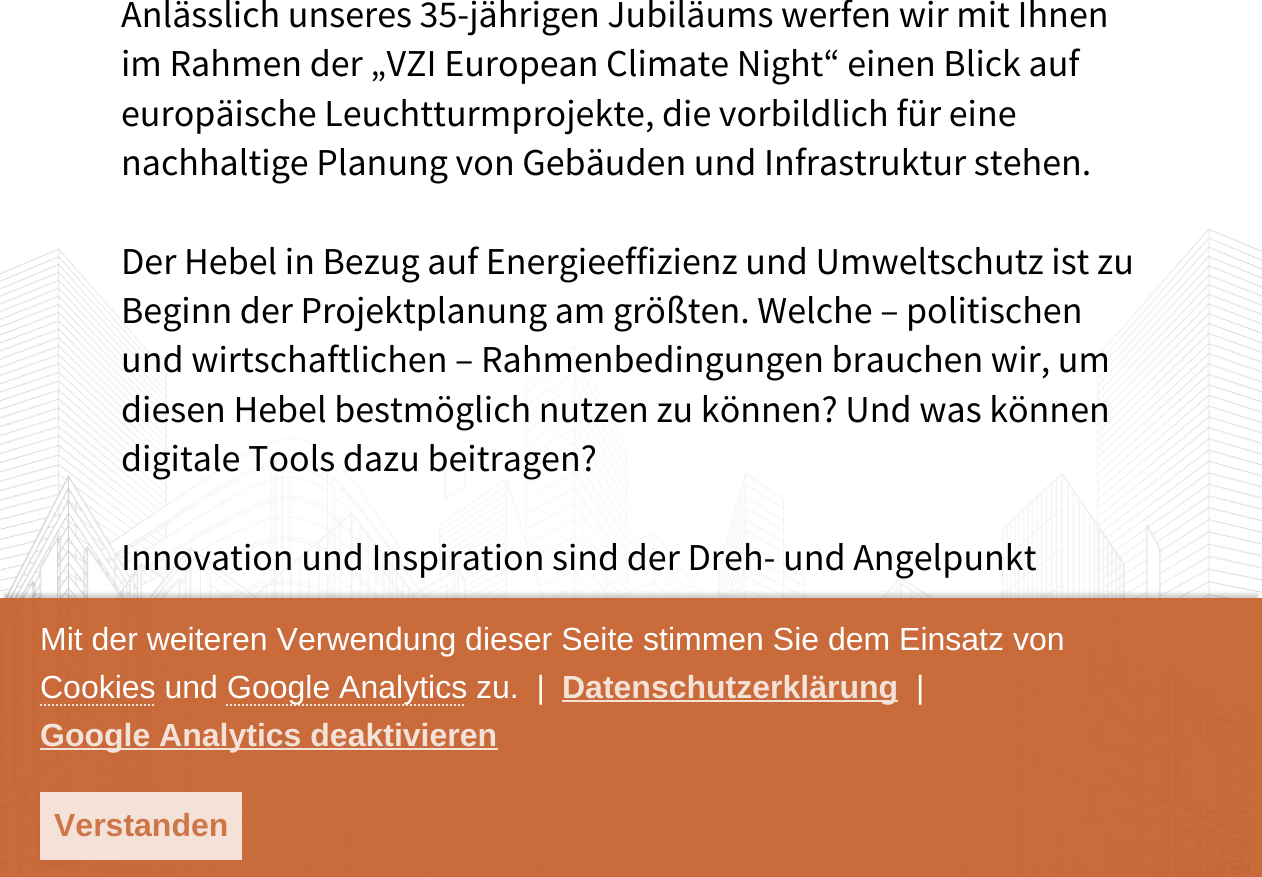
#include <cairo/cairo.h>
#include <math.h>
#include <stddef.h>


static void rounded_rect(cairo_t *cr, double x, double y, double w, double h, double r) {
  cairo_new_sub_path(cr);
  cairo_arc(cr, x + w - r, y + h - r, r, 0, M_PI / 2);
  cairo_arc(cr, x + r, y + h - r, r, M_PI / 2, M_PI);
  cairo_arc(cr, x + r, y + r, r, M_PI, 1.5 * M_PI);
  cairo_arc(cr, x + w - r, y + r, r, 1.5 * M_PI, 2 * M_PI);
  cairo_close_path(cr);
}

static void draw_shadow(cairo_t *cr, double x, double y, double w, double h, double r, double blur, double alpha) {
  cairo_push_group_with_content(cr, CAIRO_CONTENT_ALPHA);
  cairo_set_operator(cr, CAIRO_OPERATOR_SOURCE);
  for (int i = 15; i >= -15 && fmin(w, h) + blur * i / 3 > 0; i -= 2) {
    double e = blur * i / 6;
    cairo_set_source_rgba(cr, 0, 0, 0, alpha * erfc((i - 1) / 8.5) / 2);
    rounded_rect(cr, x - e, y - e, w + 2 * e, h + 2 * e, fmax(0, fmin(r + e + blur * .6, fmin(w, h) / 2 + e)));
    cairo_fill(cr);
  }
  cairo_pattern_t *soft = cairo_pop_group(cr);
  cairo_mask(cr, soft);
  cairo_pattern_destroy(soft);
}

static void draw_image(cairo_t *cr, const char *path, double x, double y, double w, double h) {
  cairo_surface_t *image = cairo_image_surface_create_from_png(path);
  cairo_save(cr);
  cairo_set_source_surface(cr, image, x, y);
  cairo_rectangle(cr, x, y, w, h);
  cairo_fill(cr);
  cairo_restore(cr);
  cairo_surface_destroy(image);
}

static void draw(cairo_t *cr) {
  cairo_set_source_rgb(cr, 1, 1, 1);
  cairo_paint(cr);
  draw_image(cr, "images/1.png", 0, 228, 1262, 649);
  cairo_save(cr);
  cairo_rectangle(cr, 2, 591, 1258, 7);
  cairo_clip(cr);
  cairo_set_source_rgb(cr, 0, 0, 0);
  draw_shadow(cr, 4, 594, 1254, 272, 0, 2, 0.2);
  cairo_restore(cr);
  cairo_set_source_rgba(cr, 197 / 255.0, 91 / 255.0, 38 / 255.0, 0.9);
  cairo_rectangle(cr, 0, 598, 1262, 279);
  cairo_fill(cr);
  cairo_new_path(cr);
  cairo_move_to(cr, 40, 705);
  cairo_line_to(cr, 156, 705);
  cairo_set_source_rgba(cr, 1, 1, 1, 0.8);
  cairo_set_dash(cr, (double[]){2, 2}, 2, 0);
  cairo_stroke(cr);
  cairo_new_path(cr);
  cairo_move_to(cr, 226, 705);
  cairo_line_to(cr, 466, 705);
  cairo_stroke(cr);
  cairo_rectangle(cr, 562, 700, 336, 2);
  cairo_fill(cr);
  cairo_rectangle(cr, 40, 748, 458, 2);
  cairo_fill(cr);
  cairo_rectangle(cr, 40, 792, 202, 68);
  cairo_fill(cr);
  cairo_select_font_face(cr, "Source Sans Pro", CAIRO_FONT_SLANT_NORMAL, CAIRO_FONT_WEIGHT_NORMAL);
  cairo_set_font_size(cr, 38);
  cairo_set_source_rgb(cr, 0, 0, 0);
  cairo_move_to(cr, 121, 27);
  cairo_show_text(cr, "Anlässlich unseres 35-jährigen Jubiläums werfen wir mit Ihnen");
  cairo_move_to(cr, 121, 76);
  cairo_show_text(cr, "im Rahmen der „VZI European Climate Night“ einen Blick auf");
  cairo_move_to(cr, 121, 126);
  cairo_show_text(cr, "europäische Leuchtturmprojekte, die vorbildlich für eine");
  cairo_move_to(cr, 121, 175);
  cairo_show_text(cr, "nachhaltige Planung von Gebäuden und Infrastruktur stehen.");
  cairo_move_to(cr, 121, 274);
  cairo_show_text(cr, "Der Hebel in Bezug auf Energieeffizienz und Umweltschutz ist zu");
  cairo_move_to(cr, 121, 323);
  cairo_show_text(cr, "Beginn der Projektplanung am größten. Welche – politischen");
  cairo_move_to(cr, 121, 372);
  cairo_show_text(cr, "und wirtschaftlichen – Rahmenbedingungen brauchen wir, um");
  cairo_move_to(cr, 121, 422);
  cairo_show_text(cr, "diesen Hebel bestmöglich nutzen zu können? Und was können");
  cairo_move_to(cr, 121, 471);
  cairo_show_text(cr, "digitale Tools dazu beitragen?");
  cairo_move_to(cr, 121, 570);
  cairo_show_text(cr, "Innovation und Inspiration sind der Dreh- und Angelpunkt");
  cairo_select_font_face(cr, "Liberation Sans", CAIRO_FONT_SLANT_NORMAL, CAIRO_FONT_WEIGHT_NORMAL);
  cairo_set_font_size(cr, 32);
  cairo_set_source_rgb(cr, 1, 1, 1);
  cairo_move_to(cr, 40, 650);
  cairo_show_text(cr, "Mit der weiteren Verwendung dieser Seite stimmen Sie dem Einsatz von");
  cairo_move_to(cr, 40, 698);
  cairo_show_text(cr, "Cookies und");
  cairo_move_to(cr, 227, 698);
  cairo_show_text(cr, "Google Analytics zu.  |");
  cairo_select_font_face(cr, "Liberation Sans", CAIRO_FONT_SLANT_NORMAL, CAIRO_FONT_WEIGHT_BOLD);
  cairo_set_source_rgb(cr, 244 / 255.0, 225 / 255.0, 216 / 255.0);
  cairo_move_to(cr, 562, 698);
  cairo_show_text(cr, "Datenschutzerklärung");
  cairo_select_font_face(cr, "Liberation Sans", CAIRO_FONT_SLANT_NORMAL, CAIRO_FONT_WEIGHT_NORMAL);
  cairo_set_source_rgb(cr, 1, 1, 1);
  cairo_move_to(cr, 916, 698);
  cairo_show_text(cr, "|");
  cairo_select_font_face(cr, "Liberation Sans", CAIRO_FONT_SLANT_NORMAL, CAIRO_FONT_WEIGHT_BOLD);
  cairo_set_source_rgb(cr, 244 / 255.0, 225 / 255.0, 216 / 255.0);
  cairo_move_to(cr, 40, 746);
  cairo_show_text(cr, "Google Analytics deaktivieren");
  cairo_set_source_rgb(cr, 206 / 255.0, 118 / 255.0, 74 / 255.0);
  cairo_move_to(cr, 54, 836);
  cairo_show_text(cr, "Verstanden");
}

int main(void) {
  cairo_surface_t *surface = cairo_image_surface_create(CAIRO_FORMAT_RGB24, 1262, 877);
  cairo_t *cr = cairo_create(surface);
  cairo_font_options_t *options = cairo_font_options_create();
  cairo_font_options_set_hint_metrics(options, CAIRO_HINT_METRICS_OFF);
  cairo_font_options_set_hint_style(options, CAIRO_HINT_STYLE_NONE);
  cairo_set_font_options(cr, options);
  cairo_set_miter_limit(cr, 4);
  draw(cr);
  cairo_surface_write_to_png(surface, "out.png");
  cairo_font_options_destroy(options);
  cairo_destroy(cr);
  cairo_surface_destroy(surface);
  return 0;
}
